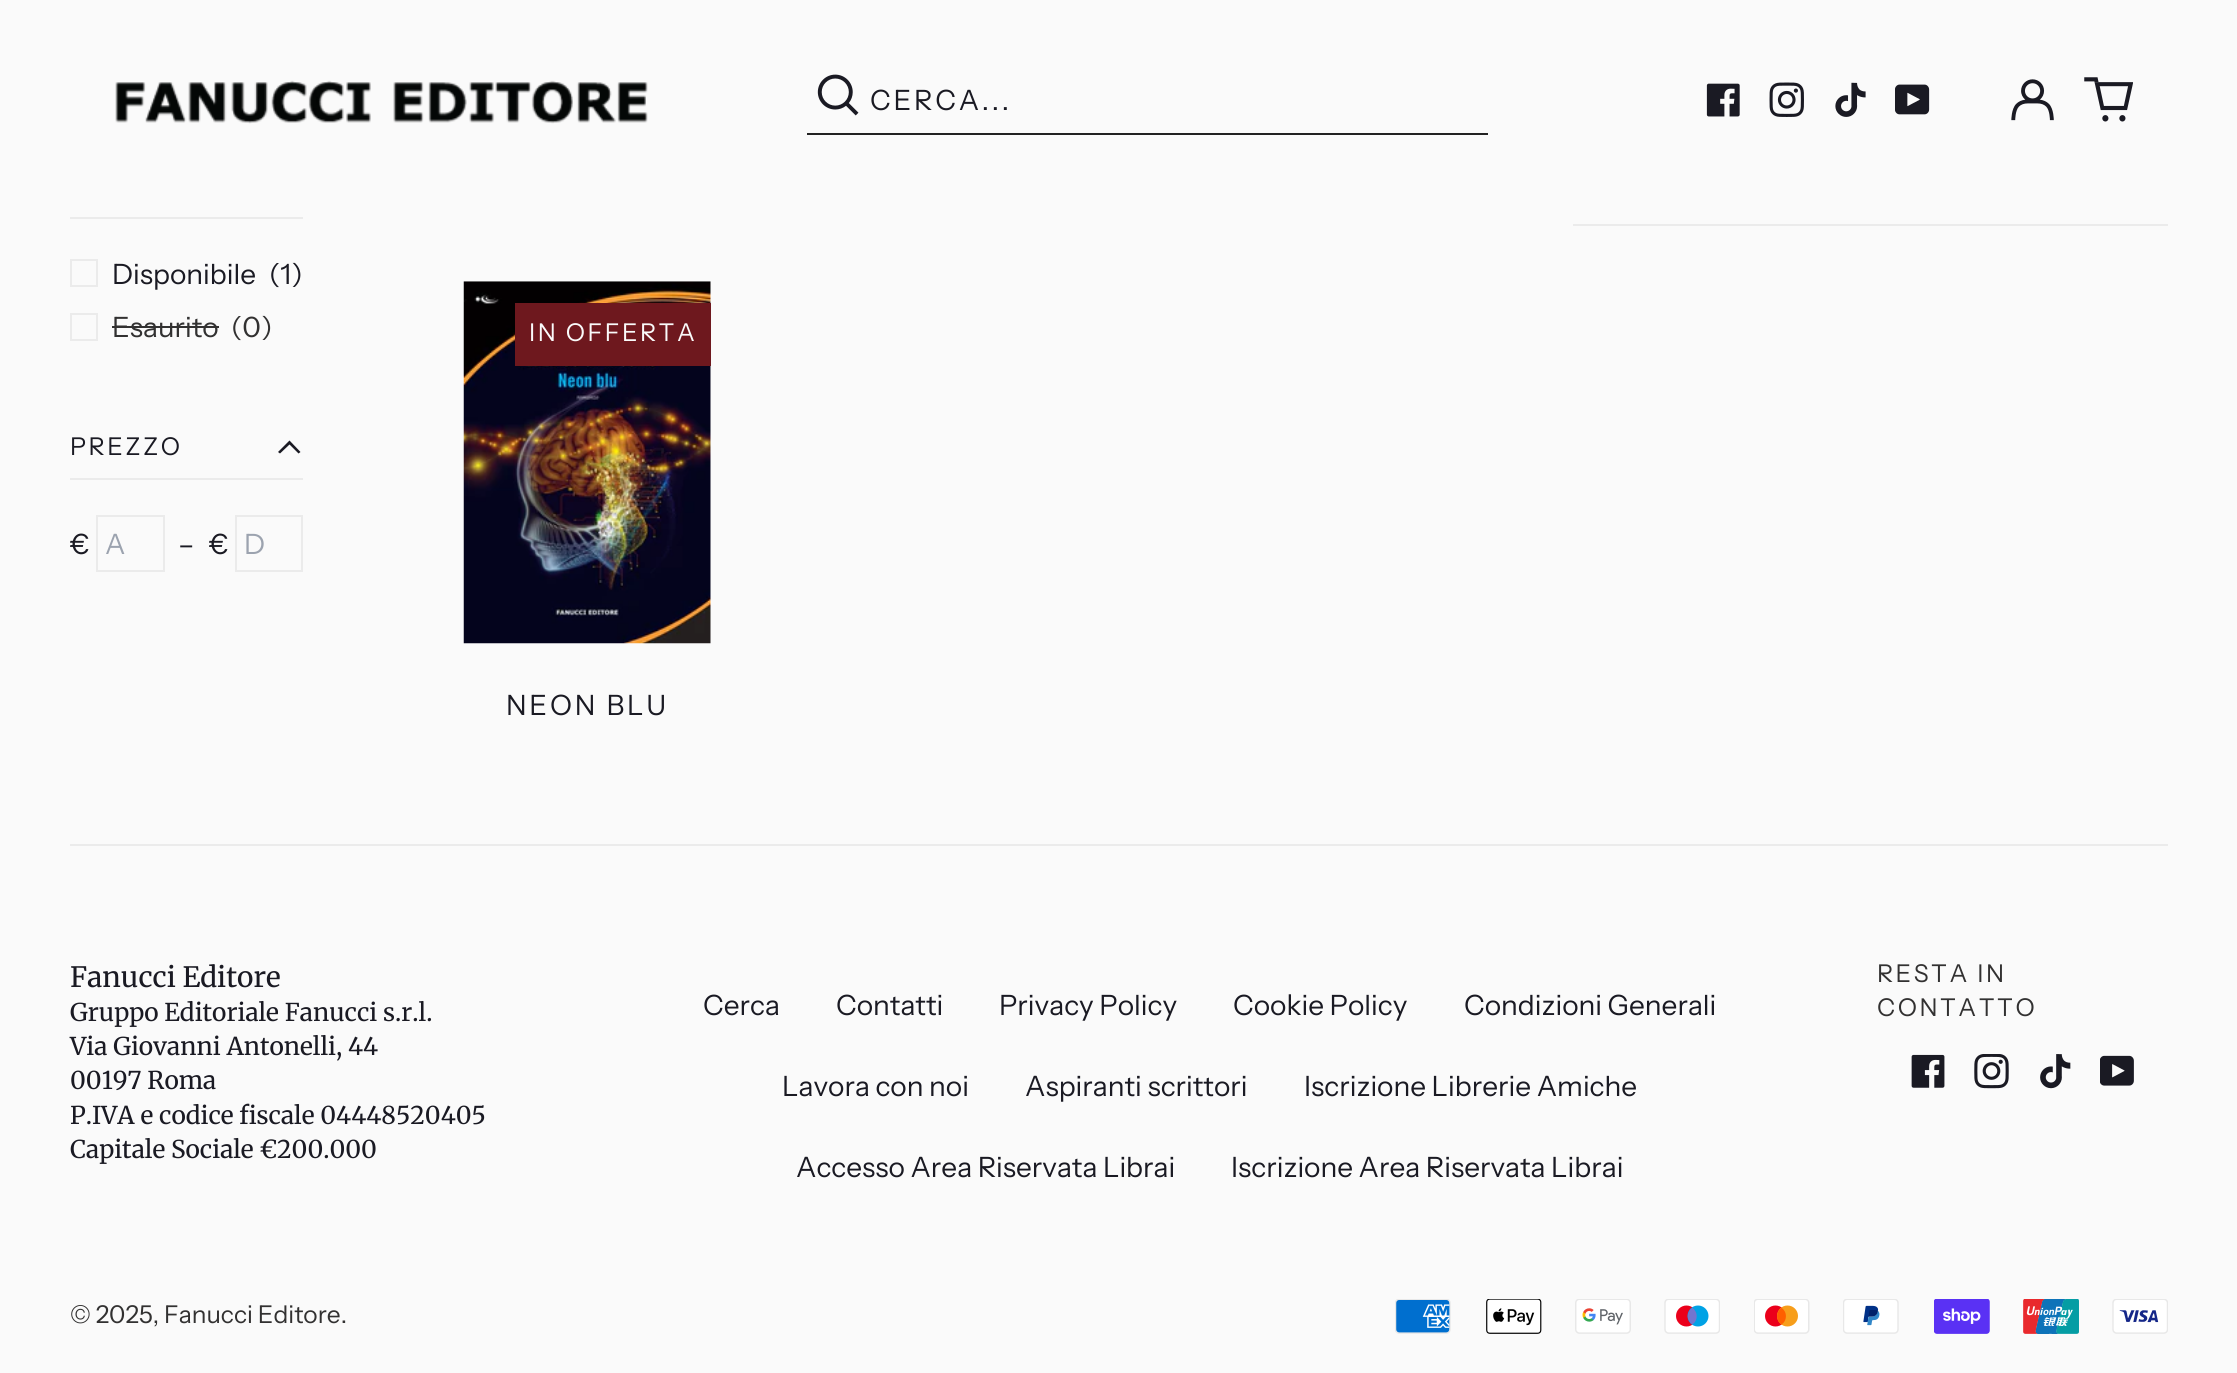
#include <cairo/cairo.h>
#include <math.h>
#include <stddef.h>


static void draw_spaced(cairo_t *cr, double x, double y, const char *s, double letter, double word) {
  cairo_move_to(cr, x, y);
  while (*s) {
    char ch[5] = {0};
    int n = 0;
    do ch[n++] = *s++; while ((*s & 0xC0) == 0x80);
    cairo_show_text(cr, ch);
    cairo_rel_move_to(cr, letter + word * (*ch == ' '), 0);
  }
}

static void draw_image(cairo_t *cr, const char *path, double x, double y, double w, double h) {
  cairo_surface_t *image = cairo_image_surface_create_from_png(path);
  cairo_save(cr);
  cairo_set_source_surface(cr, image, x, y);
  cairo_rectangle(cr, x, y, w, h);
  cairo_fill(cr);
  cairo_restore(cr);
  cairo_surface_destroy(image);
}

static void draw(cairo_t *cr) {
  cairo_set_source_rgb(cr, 250 / 255.0, 250 / 255.0, 250 / 255.0);
  cairo_paint(cr);
  draw_image(cr, "images/1.png", 115, 80, 533, 44);
  draw_image(cr, "images/2.png", 817, 74, 42, 42);
  cairo_set_source_rgb(cr, 34 / 255.0, 34 / 255.0, 34 / 255.0);
  cairo_rectangle(cr, 807, 133, 681, 2);
  cairo_fill(cr);
  draw_image(cr, "images/3.png", 1706, 83, 34, 34);
  draw_image(cr, "images/4.png", 1769, 82, 35, 35);
  draw_image(cr, "images/5.png", 1835, 82, 31, 35);
  draw_image(cr, "images/6.png", 1895, 84, 35, 31);
  draw_image(cr, "images/7.png", 2011, 79, 43, 42);
  draw_image(cr, "images/8.png", 2084, 77, 49, 45);
  cairo_set_source_rgb(cr, 235 / 255.0, 235 / 255.0, 235 / 255.0);
  cairo_rectangle(cr, 70, 217, 233, 2);
  cairo_fill(cr);
  cairo_rectangle(cr, 71, 260, 26, 26);
  cairo_stroke(cr);
  cairo_rectangle(cr, 71, 314, 26, 26);
  cairo_stroke(cr);
  cairo_set_source_rgb(cr, 50 / 255.0, 49 / 255.0, 49 / 255.0);
  cairo_rectangle(cr, 112, 326, 107, 2);
  cairo_fill(cr);
  cairo_set_source_rgb(cr, 235 / 255.0, 235 / 255.0, 235 / 255.0);
  cairo_rectangle(cr, 70, 478, 233, 2);
  cairo_fill(cr);
  cairo_set_source_rgb(cr, 26 / 255.0, 26 / 255.0, 35 / 255.0);
  cairo_set_fill_rule(cr, CAIRO_FILL_RULE_EVEN_ODD);
  cairo_new_path(cr);
  cairo_move_to(cr, 280, 453.5);
  cairo_line_to(cr, 278, 452);
  cairo_line_to(cr, 289.5, 440.5);
  cairo_line_to(cr, 300.5, 452);
  cairo_line_to(cr, 298.5, 453.5);
  cairo_line_to(cr, 289.5, 444.5);
  cairo_close_path(cr);
  cairo_fill(cr);
  cairo_rectangle(cr, 97, 516, 67, 55);
  cairo_set_source_rgb(cr, 235 / 255.0, 235 / 255.0, 235 / 255.0);
  cairo_stroke(cr);
  cairo_rectangle(cr, 236, 516, 66, 55);
  cairo_stroke(cr);
  cairo_rectangle(cr, 1573, 224, 595, 2);
  cairo_fill(cr);
  draw_image(cr, "images/9.png", 463, 281, 248, 363);
  cairo_set_source_rgb(cr, 110 / 255.0, 24 / 255.0, 30 / 255.0);
  cairo_rectangle(cr, 515, 303, 196, 63);
  cairo_fill(cr);
  cairo_set_source_rgb(cr, 235 / 255.0, 235 / 255.0, 235 / 255.0);
  cairo_rectangle(cr, 70, 844, 2098, 2);
  cairo_fill(cr);
  draw_image(cr, "images/10.png", 1911, 1054, 34, 34);
  draw_image(cr, "images/11.png", 1974, 1054, 35, 35);
  draw_image(cr, "images/12.png", 2040, 1054, 31, 35);
  draw_image(cr, "images/13.png", 2100, 1055, 34, 31);
  draw_image(cr, "images/14.png", 1395, 1299, 56, 35);
  draw_image(cr, "images/15.png", 1486, 1299, 56, 35);
  draw_image(cr, "images/16.png", 1575, 1299, 56, 35);
  draw_image(cr, "images/17.png", 1664, 1299, 56, 35);
  draw_image(cr, "images/18.png", 1754, 1299, 56, 35);
  draw_image(cr, "images/19.png", 1843, 1299, 56, 35);
  draw_image(cr, "images/20.png", 1934, 1299, 56, 35);
  draw_image(cr, "images/21.png", 2023, 1299, 56, 35);
  draw_image(cr, "images/22.png", 2112, 1299, 56, 35);
  cairo_select_font_face(cr, "Instrument Sans", CAIRO_FONT_SLANT_NORMAL, CAIRO_FONT_WEIGHT_NORMAL);
  cairo_set_font_size(cr, 28);
  cairo_set_source_rgb(cr, 26 / 255.0, 26 / 255.0, 35 / 255.0);
  draw_spaced(cr, 870, 110, "CERCA...", 2.75, 0);
  cairo_move_to(cr, 112, 284);
  cairo_show_text(cr, "Disponibile");
  cairo_move_to(cr, 269, 284);
  cairo_show_text(cr, "(1)");
  cairo_set_source_rgb(cr, 50 / 255.0, 49 / 255.0, 49 / 255.0);
  cairo_move_to(cr, 112, 337);
  cairo_show_text(cr, "Esaurito");
  cairo_move_to(cr, 231, 337);
  cairo_show_text(cr, "(0)");
  cairo_set_font_size(cr, 24.5);
  cairo_set_source_rgb(cr, 26 / 255.0, 26 / 255.0, 35 / 255.0);
  draw_spaced(cr, 70, 455, "PREZZO", 2.5, 0);
  cairo_set_font_size(cr, 28);
  cairo_move_to(cr, 70, 554);
  cairo_show_text(cr, "€");
  cairo_set_source_rgb(cr, 156 / 255.0, 163 / 255.0, 175 / 255.0);
  cairo_move_to(cr, 105, 554);
  cairo_show_text(cr, "A");
  cairo_set_source_rgb(cr, 26 / 255.0, 26 / 255.0, 35 / 255.0);
  cairo_move_to(cr, 178, 554);
  cairo_show_text(cr, "–");
  cairo_move_to(cr, 209, 554);
  cairo_show_text(cr, "€");
  cairo_set_source_rgb(cr, 156 / 255.0, 163 / 255.0, 175 / 255.0);
  cairo_move_to(cr, 244, 554);
  cairo_show_text(cr, "D");
  cairo_set_font_size(cr, 24.5);
  cairo_set_source_rgb(cr, 250 / 255.0, 250 / 255.0, 250 / 255.0);
  draw_spaced(cr, 529, 341, "IN OFFERTA", 2.5, 0);
  cairo_set_font_size(cr, 28);
  cairo_set_source_rgb(cr, 26 / 255.0, 26 / 255.0, 35 / 255.0);
  draw_spaced(cr, 506, 715, "NEON BLU", 2.75, 0);
  cairo_select_font_face(cr, "Merriweather", CAIRO_FONT_SLANT_NORMAL, CAIRO_FONT_WEIGHT_NORMAL);
  cairo_move_to(cr, 70, 987);
  cairo_show_text(cr, "Fanucci Editore");
  cairo_set_font_size(cr, 24.5);
  cairo_move_to(cr, 70, 1021);
  cairo_show_text(cr, "Gruppo Editoriale Fanucci s.r.l.");
  cairo_move_to(cr, 70, 1055);
  cairo_show_text(cr, "Via Giovanni Antonelli, 44");
  cairo_move_to(cr, 70, 1089);
  cairo_show_text(cr, "00197 Roma");
  cairo_move_to(cr, 70, 1124);
  cairo_show_text(cr, "P.IVA e codice fiscale 04448520405");
  cairo_move_to(cr, 70, 1158);
  cairo_show_text(cr, "Capitale Sociale €200.000");
  cairo_select_font_face(cr, "Instrument Sans", CAIRO_FONT_SLANT_NORMAL, CAIRO_FONT_WEIGHT_NORMAL);
  cairo_set_font_size(cr, 28);
  cairo_move_to(cr, 703, 1015);
  cairo_show_text(cr, "Cerca");
  cairo_move_to(cr, 836, 1015);
  cairo_show_text(cr, "Contatti");
  cairo_move_to(cr, 999, 1015);
  cairo_show_text(cr, "Privacy Policy");
  cairo_move_to(cr, 1233, 1015);
  cairo_show_text(cr, "Cookie Policy");
  cairo_move_to(cr, 1464, 1015);
  cairo_show_text(cr, "Condizioni Generali");
  cairo_move_to(cr, 782, 1096);
  cairo_show_text(cr, "Lavora con noi");
  cairo_move_to(cr, 1025, 1096);
  cairo_show_text(cr, "Aspiranti scrittori");
  cairo_move_to(cr, 1304, 1096);
  cairo_show_text(cr, "Iscrizione Librerie Amiche");
  cairo_move_to(cr, 796, 1177);
  cairo_show_text(cr, "Accesso Area Riservata Librai");
  cairo_move_to(cr, 1231, 1177);
  cairo_show_text(cr, "Iscrizione Area Riservata Librai");
  cairo_set_font_size(cr, 24.5);
  cairo_set_source_rgb(cr, 50 / 255.0, 49 / 255.0, 49 / 255.0);
  draw_spaced(cr, 1877, 982, "RESTA IN", 2.5, 0);
  draw_spaced(cr, 1877, 1016, "CONTATTO", 2.5, 0);
  cairo_move_to(cr, 70, 1323);
  cairo_show_text(cr, "© 2025, Fanucci Editore.");
}

int main(void) {
  cairo_surface_t *surface = cairo_image_surface_create(CAIRO_FORMAT_RGB24, 2237, 1373);
  cairo_t *cr = cairo_create(surface);
  cairo_font_options_t *options = cairo_font_options_create();
  cairo_font_options_set_hint_metrics(options, CAIRO_HINT_METRICS_OFF);
  cairo_font_options_set_hint_style(options, CAIRO_HINT_STYLE_NONE);
  cairo_set_font_options(cr, options);
  cairo_set_miter_limit(cr, 4);
  draw(cr);
  cairo_surface_write_to_png(surface, "out.png");
  cairo_font_options_destroy(options);
  cairo_destroy(cr);
  cairo_surface_destroy(surface);
  return 0;
}
